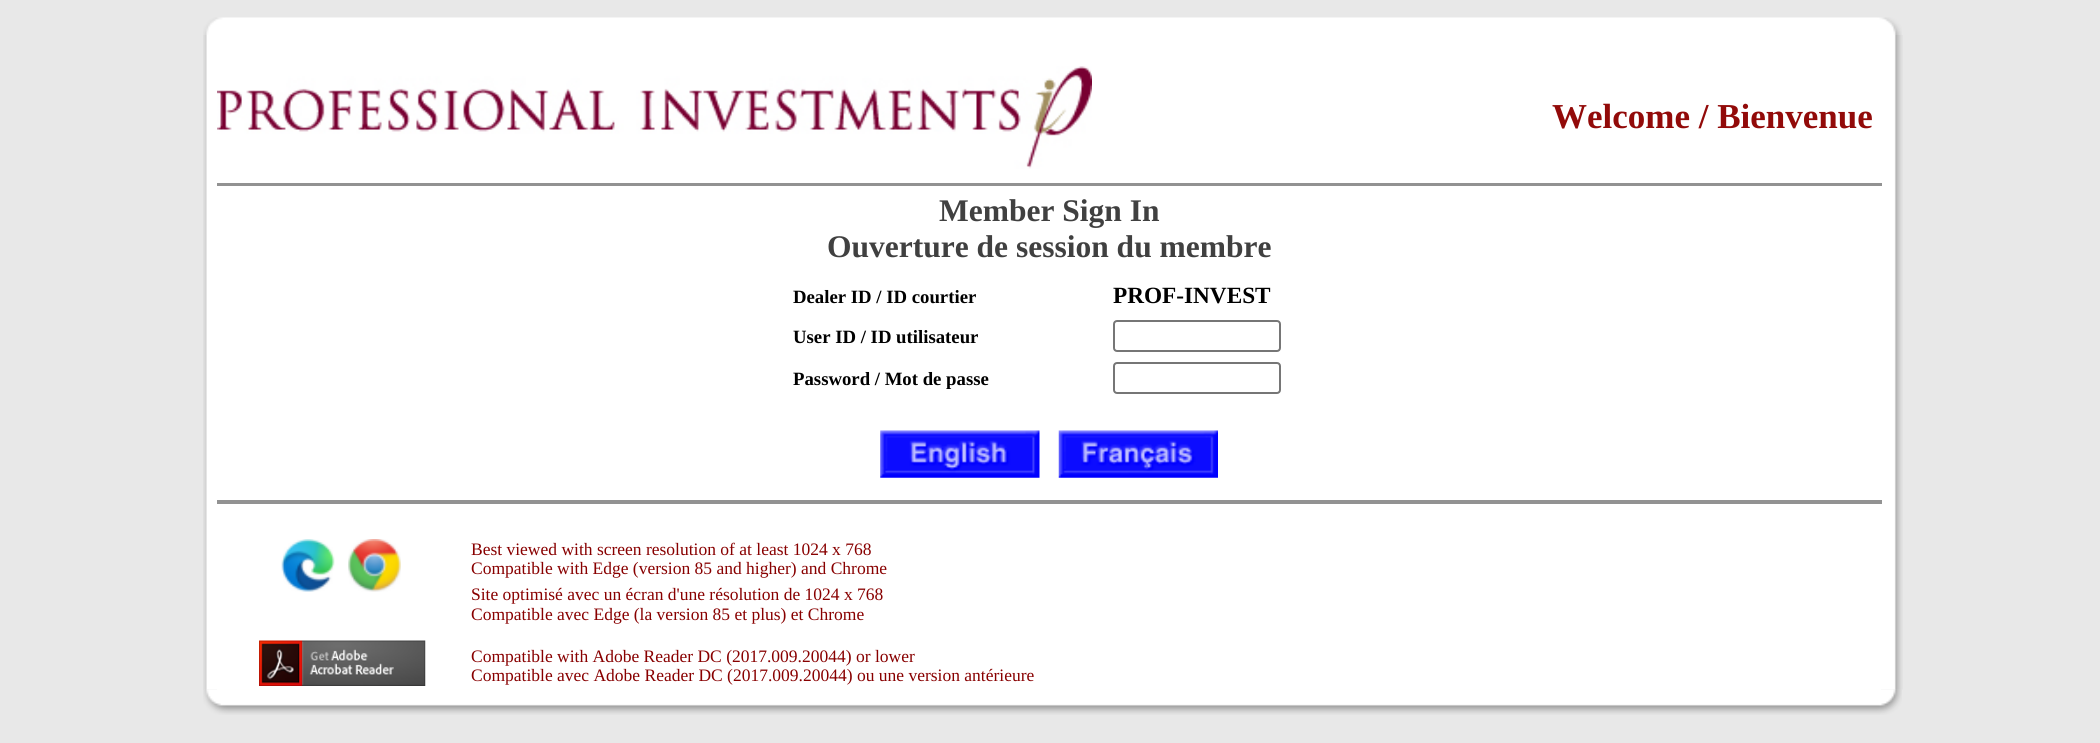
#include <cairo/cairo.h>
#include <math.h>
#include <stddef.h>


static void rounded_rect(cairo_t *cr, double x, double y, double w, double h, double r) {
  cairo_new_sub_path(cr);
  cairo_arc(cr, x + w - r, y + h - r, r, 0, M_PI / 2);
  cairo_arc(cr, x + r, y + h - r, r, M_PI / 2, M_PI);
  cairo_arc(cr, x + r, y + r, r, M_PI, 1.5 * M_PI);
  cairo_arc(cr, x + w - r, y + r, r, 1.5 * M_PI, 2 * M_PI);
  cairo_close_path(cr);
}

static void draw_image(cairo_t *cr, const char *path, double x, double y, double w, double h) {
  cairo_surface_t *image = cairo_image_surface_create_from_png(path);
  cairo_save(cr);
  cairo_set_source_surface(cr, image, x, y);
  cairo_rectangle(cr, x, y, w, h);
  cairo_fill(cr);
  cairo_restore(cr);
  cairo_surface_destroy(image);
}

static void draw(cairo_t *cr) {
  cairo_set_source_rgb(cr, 232 / 255.0, 232 / 255.0, 232 / 255.0);
  cairo_paint(cr);
  draw_image(cr, "images/1.png", 203, 17, 1699, 18);
  draw_image(cr, "images/2.png", 203, 35, 1700, 655);
  draw_image(cr, "images/3.png", 217, 66, 875, 103);
  cairo_set_source_rgb(cr, 146 / 255.0, 146 / 255.0, 146 / 255.0);
  cairo_rectangle(cr, 217, 183, 1665, 3);
  cairo_fill(cr);
  rounded_rect(cr, 1114, 321, 166, 30, 3);
  cairo_set_source_rgb(cr, 118 / 255.0, 118 / 255.0, 118 / 255.0);
  cairo_stroke(cr);
  rounded_rect(cr, 1114, 363, 166, 30, 3);
  cairo_stroke(cr);
  draw_image(cr, "images/4.png", 880, 430, 160, 48);
  draw_image(cr, "images/5.png", 1058, 430, 160, 48);
  cairo_set_source_rgb(cr, 146 / 255.0, 146 / 255.0, 146 / 255.0);
  cairo_rectangle(cr, 217, 500, 1665, 4);
  cairo_fill(cr);
  cairo_set_source_rgb(cr, 1, 1, 253 / 255.0);
  cairo_rectangle(cr, 217, 689, 1664, 1);
  cairo_fill(cr);
  draw_image(cr, "images/6.png", 281, 539, 54, 53);
  draw_image(cr, "images/7.png", 348, 539, 53, 53);
  draw_image(cr, "images/8.png", 259, 640, 167, 46);
  draw_image(cr, "images/9.png", 203, 689, 1699, 26);
  cairo_select_font_face(cr, "Liberation Serif", CAIRO_FONT_SLANT_NORMAL, CAIRO_FONT_WEIGHT_BOLD);
  cairo_set_font_size(cr, 35);
  cairo_set_source_rgb(cr, 146 / 255.0, 10 / 255.0, 9 / 255.0);
  cairo_move_to(cr, 1552, 128);
  cairo_show_text(cr, "Welcome / Bienvenue");
  cairo_set_font_size(cr, 31.5);
  cairo_set_source_rgb(cr, 64 / 255.0, 64 / 255.0, 64 / 255.0);
  cairo_move_to(cr, 939, 221);
  cairo_show_text(cr, "Member Sign In");
  cairo_move_to(cr, 827, 257);
  cairo_show_text(cr, "Ouverture de session du membre");
  cairo_set_font_size(cr, 18.75);
  cairo_set_source_rgb(cr, 0, 0, 0);
  cairo_move_to(cr, 793, 303);
  cairo_show_text(cr, "Dealer ID / ID courtier");
  cairo_set_font_size(cr, 23.25);
  cairo_move_to(cr, 1113, 303);
  cairo_show_text(cr, "PROF-INVEST");
  cairo_set_font_size(cr, 18.75);
  cairo_move_to(cr, 793, 343);
  cairo_show_text(cr, "User ID / ID utilisateur");
  cairo_move_to(cr, 793, 385);
  cairo_show_text(cr, "Password / Mot de passe");
  cairo_select_font_face(cr, "Liberation Serif", CAIRO_FONT_SLANT_NORMAL, CAIRO_FONT_WEIGHT_NORMAL);
  cairo_set_font_size(cr, 17.5);
  cairo_set_source_rgb(cr, 136 / 255.0, 0, 0);
  cairo_move_to(cr, 471, 555);
  cairo_show_text(cr, "Best viewed with screen resolution of at least 1024 x 768");
  cairo_move_to(cr, 471, 574);
  cairo_show_text(cr, "Compatible with Edge (version 85 and higher) and Chrome");
  cairo_move_to(cr, 471, 600);
  cairo_show_text(cr, "Site optimisé avec un écran d'une résolution de 1024 x 768");
  cairo_move_to(cr, 471, 620);
  cairo_show_text(cr, "Compatible avec Edge (la version 85 et plus) et Chrome");
  cairo_move_to(cr, 471, 662);
  cairo_show_text(cr, "Compatible with Adobe Reader DC (2017.009.20044) or lower");
  cairo_move_to(cr, 471, 681);
  cairo_show_text(cr, "Compatible avec Adobe Reader DC (2017.009.20044) ou une version antérieure");
}

int main(void) {
  cairo_surface_t *surface = cairo_image_surface_create(CAIRO_FORMAT_RGB24, 2100, 743);
  cairo_t *cr = cairo_create(surface);
  cairo_font_options_t *options = cairo_font_options_create();
  cairo_font_options_set_hint_metrics(options, CAIRO_HINT_METRICS_OFF);
  cairo_font_options_set_hint_style(options, CAIRO_HINT_STYLE_NONE);
  cairo_set_font_options(cr, options);
  cairo_set_miter_limit(cr, 4);
  draw(cr);
  cairo_surface_write_to_png(surface, "out.png");
  cairo_font_options_destroy(options);
  cairo_destroy(cr);
  cairo_surface_destroy(surface);
  return 0;
}
